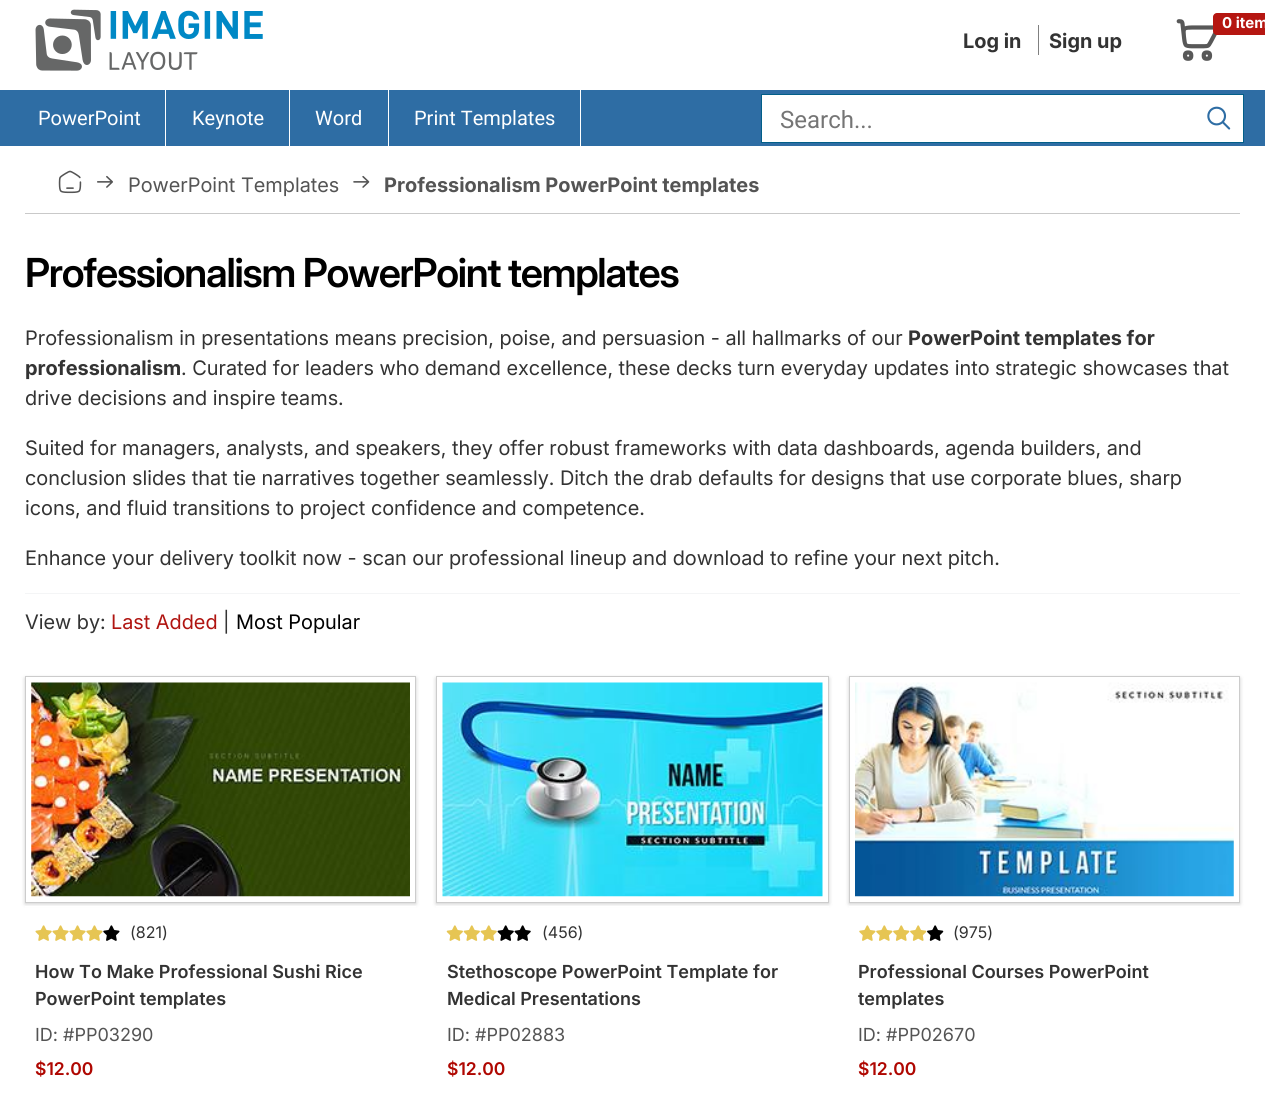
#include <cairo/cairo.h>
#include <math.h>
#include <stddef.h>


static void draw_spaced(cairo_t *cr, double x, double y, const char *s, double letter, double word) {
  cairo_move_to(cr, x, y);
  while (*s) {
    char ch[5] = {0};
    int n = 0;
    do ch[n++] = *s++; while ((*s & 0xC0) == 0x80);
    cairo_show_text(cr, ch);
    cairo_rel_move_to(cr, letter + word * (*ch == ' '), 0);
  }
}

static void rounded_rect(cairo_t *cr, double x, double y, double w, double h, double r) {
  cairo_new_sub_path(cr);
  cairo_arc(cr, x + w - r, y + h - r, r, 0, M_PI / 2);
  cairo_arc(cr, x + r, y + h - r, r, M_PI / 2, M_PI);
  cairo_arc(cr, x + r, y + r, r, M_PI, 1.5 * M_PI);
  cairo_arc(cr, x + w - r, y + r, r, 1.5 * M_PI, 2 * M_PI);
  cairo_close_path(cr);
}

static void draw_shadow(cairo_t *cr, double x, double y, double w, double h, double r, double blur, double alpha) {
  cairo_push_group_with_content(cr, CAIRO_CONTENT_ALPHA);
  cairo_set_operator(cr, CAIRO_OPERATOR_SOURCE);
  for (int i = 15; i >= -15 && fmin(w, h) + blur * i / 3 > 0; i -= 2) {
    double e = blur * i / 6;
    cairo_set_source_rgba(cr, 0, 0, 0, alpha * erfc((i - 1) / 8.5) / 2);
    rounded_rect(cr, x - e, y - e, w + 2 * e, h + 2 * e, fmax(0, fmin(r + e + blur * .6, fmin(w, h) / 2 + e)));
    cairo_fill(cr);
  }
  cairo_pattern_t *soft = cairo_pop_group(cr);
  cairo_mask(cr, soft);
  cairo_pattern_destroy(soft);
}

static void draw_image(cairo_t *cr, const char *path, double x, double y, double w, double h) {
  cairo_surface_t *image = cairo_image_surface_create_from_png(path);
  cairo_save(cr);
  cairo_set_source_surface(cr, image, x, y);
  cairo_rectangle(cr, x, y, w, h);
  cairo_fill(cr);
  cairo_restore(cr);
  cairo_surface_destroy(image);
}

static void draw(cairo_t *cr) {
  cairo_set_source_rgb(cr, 1, 1, 1);
  cairo_paint(cr);
  draw_image(cr, "images/1.png", 35, 9, 228, 62);
  draw_image(cr, "images/2.png", 1176, 19, 41, 42);
  cairo_set_source_rgb(cr, 181 / 255.0, 22 / 255.0, 17 / 255.0);
  rounded_rect(cr, 1213, 13, 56, 22, 4);
  cairo_fill(cr);
  cairo_set_source_rgb(cr, 128 / 255.0, 128 / 255.0, 128 / 255.0);
  cairo_rectangle(cr, 1038, 25, 1, 30);
  cairo_fill(cr);
  cairo_set_source_rgb(cr, 46 / 255.0, 109 / 255.0, 164 / 255.0);
  cairo_rectangle(cr, 0, 90, 1265, 56);
  cairo_fill(cr);
  cairo_set_source_rgb(cr, 1, 1, 1);
  cairo_rectangle(cr, 165, 90, 1, 56);
  cairo_fill(cr);
  cairo_rectangle(cr, 289, 90, 1, 56);
  cairo_fill(cr);
  cairo_rectangle(cr, 388, 90, 1, 56);
  cairo_fill(cr);
  cairo_rectangle(cr, 580, 90, 1, 56);
  cairo_fill(cr);
  cairo_rectangle(cr, 761.5, 94.5, 482, 48);
  cairo_fill_preserve(cr);
  cairo_set_source_rgb(cr, 2 / 255.0, 95 / 255.0, 137 / 255.0);
  cairo_set_line_width(cr, 1);
  cairo_stroke(cr);
  draw_image(cr, "images/3.png", 1207, 106, 24, 24);
  cairo_set_source_rgb(cr, 201 / 255.0, 201 / 255.0, 201 / 255.0);
  cairo_rectangle(cr, 25, 213, 1215, 1);
  cairo_fill(cr);
  draw_image(cr, "images/4.png", 58, 170, 24, 24);
  draw_image(cr, "images/5.png", 97, 175, 16, 13);
  draw_image(cr, "images/6.png", 353, 175, 17, 13);
  cairo_set_source_rgb(cr, 244 / 255.0, 245 / 255.0, 246 / 255.0);
  cairo_rectangle(cr, 25, 593, 1215, 1);
  cairo_fill(cr);
  cairo_set_source_rgb(cr, 0, 0, 0);
  draw_shadow(cr, 25, 678, 391, 226, 0, 2, 0.2);
  cairo_set_source_rgb(cr, 1, 1, 1);
  cairo_rectangle(cr, 25.5, 676.5, 390, 226);
  cairo_fill_preserve(cr);
  cairo_set_source_rgb(cr, 204 / 255.0, 204 / 255.0, 204 / 255.0);
  cairo_stroke(cr);
  draw_image(cr, "images/7.png", 31, 682, 379, 215);
  cairo_set_source_rgb(cr, 1, 1, 1);
  cairo_rectangle(cr, 25, 906, 391, 1);
  cairo_fill(cr);
  draw_image(cr, "images/8.png", 35, 925, 85, 16);
  cairo_set_source_rgb(cr, 0, 0, 0);
  draw_shadow(cr, 436, 678, 393, 226, 0, 2, 0.2);
  cairo_set_source_rgb(cr, 1, 1, 1);
  cairo_rectangle(cr, 436.5, 676.5, 392, 226);
  cairo_fill_preserve(cr);
  cairo_set_source_rgb(cr, 204 / 255.0, 204 / 255.0, 204 / 255.0);
  cairo_stroke(cr);
  draw_image(cr, "images/9.png", 442, 682, 381, 215);
  cairo_set_source_rgb(cr, 1, 1, 1);
  cairo_rectangle(cr, 436, 906, 393, 1);
  cairo_fill(cr);
  draw_image(cr, "images/10.png", 446, 925, 85, 16);
  cairo_set_source_rgb(cr, 0, 0, 0);
  draw_shadow(cr, 849, 678, 391, 226, 0, 2, 0.2);
  cairo_set_source_rgb(cr, 1, 1, 1);
  cairo_rectangle(cr, 849.5, 676.5, 390, 226);
  cairo_fill_preserve(cr);
  cairo_set_source_rgb(cr, 204 / 255.0, 204 / 255.0, 204 / 255.0);
  cairo_stroke(cr);
  draw_image(cr, "images/11.png", 855, 682, 379, 215);
  cairo_set_source_rgb(cr, 1, 1, 1);
  cairo_rectangle(cr, 849, 906, 391, 1);
  cairo_fill(cr);
  draw_image(cr, "images/12.png", 859, 925, 85, 16);
  cairo_select_font_face(cr, "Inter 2", CAIRO_FONT_SLANT_NORMAL, CAIRO_FONT_WEIGHT_BOLD);
  cairo_set_font_size(cr, 15);
  cairo_move_to(cr, 1222, 28);
  cairo_show_text(cr, "0 item");
  cairo_select_font_face(cr, "Inter", CAIRO_FONT_SLANT_NORMAL, CAIRO_FONT_WEIGHT_BOLD);
  cairo_set_font_size(cr, 20);
  cairo_set_source_rgb(cr, 51 / 255.0, 51 / 255.0, 51 / 255.0);
  cairo_move_to(cr, 963, 48);
  cairo_show_text(cr, "Log in");
  cairo_move_to(cr, 1049, 48);
  cairo_show_text(cr, "Sign up");
  cairo_select_font_face(cr, "Roboto", CAIRO_FONT_SLANT_NORMAL, CAIRO_FONT_WEIGHT_NORMAL);
  cairo_set_source_rgb(cr, 1, 1, 1);
  cairo_move_to(cr, 38, 125);
  cairo_show_text(cr, "PowerPoint");
  cairo_move_to(cr, 192, 125);
  cairo_show_text(cr, "Keynote");
  cairo_move_to(cr, 315, 125);
  cairo_show_text(cr, "Word");
  cairo_move_to(cr, 414, 125);
  cairo_show_text(cr, "Print Templates");
  cairo_set_font_size(cr, 24);
  cairo_set_source_rgb(cr, 117 / 255.0, 117 / 255.0, 117 / 255.0);
  cairo_move_to(cr, 780, 128);
  cairo_show_text(cr, "Search...");
  cairo_select_font_face(cr, "Inter", CAIRO_FONT_SLANT_NORMAL, CAIRO_FONT_WEIGHT_NORMAL);
  cairo_set_font_size(cr, 20);
  cairo_set_source_rgb(cr, 84 / 255.0, 84 / 255.0, 84 / 255.0);
  cairo_move_to(cr, 128, 192);
  cairo_show_text(cr, "PowerPoint Templates");
  cairo_select_font_face(cr, "Inter", CAIRO_FONT_SLANT_NORMAL, CAIRO_FONT_WEIGHT_BOLD);
  cairo_move_to(cr, 384, 192);
  cairo_show_text(cr, "Professionalism PowerPoint templates");
  cairo_select_font_face(cr, "Inter SemiBold", CAIRO_FONT_SLANT_NORMAL, CAIRO_FONT_WEIGHT_NORMAL);
  cairo_set_font_size(cr, 40);
  cairo_set_source_rgb(cr, 0, 0, 0);
  draw_spaced(cr, 25, 287, "Professionalism PowerPoint templates", -1.25, 0);
  cairo_select_font_face(cr, "Inter", CAIRO_FONT_SLANT_NORMAL, CAIRO_FONT_WEIGHT_NORMAL);
  cairo_set_font_size(cr, 20);
  cairo_set_source_rgb(cr, 51 / 255.0, 51 / 255.0, 51 / 255.0);
  cairo_move_to(cr, 25, 345);
  cairo_show_text(cr, "Professionalism in presentations means precision, poise, and persuasion - all hallmarks of our");
  cairo_select_font_face(cr, "Inter", CAIRO_FONT_SLANT_NORMAL, CAIRO_FONT_WEIGHT_BOLD);
  cairo_move_to(cr, 908, 345);
  cairo_show_text(cr, "PowerPoint templates for");
  cairo_move_to(cr, 25, 375);
  cairo_show_text(cr, "professionalism");
  cairo_select_font_face(cr, "Inter", CAIRO_FONT_SLANT_NORMAL, CAIRO_FONT_WEIGHT_NORMAL);
  cairo_move_to(cr, 181, 375);
  cairo_show_text(cr, ". Curated for leaders who demand excellence, these decks turn everyday updates into strategic showcases that");
  cairo_move_to(cr, 25, 405);
  cairo_show_text(cr, "drive decisions and inspire teams.");
  cairo_move_to(cr, 25, 455);
  cairo_show_text(cr, "Suited for managers, analysts, and speakers, they offer robust frameworks with data dashboards, agenda builders, and");
  cairo_move_to(cr, 25, 485);
  cairo_show_text(cr, "conclusion slides that tie narratives together seamlessly. Ditch the drab defaults for designs that use corporate blues, sharp");
  cairo_move_to(cr, 25, 515);
  cairo_show_text(cr, "icons, and fluid transitions to project confidence and competence.");
  cairo_move_to(cr, 25, 565);
  cairo_show_text(cr, "Enhance your delivery toolkit now - scan our professional lineup and download to refine your next pitch.");
  cairo_move_to(cr, 25, 629);
  cairo_show_text(cr, "View by:");
  cairo_set_source_rgb(cr, 176 / 255.0, 21 / 255.0, 17 / 255.0);
  cairo_move_to(cr, 111, 629);
  cairo_show_text(cr, "Last Added");
  cairo_set_source_rgb(cr, 51 / 255.0, 51 / 255.0, 51 / 255.0);
  cairo_move_to(cr, 223, 629);
  cairo_show_text(cr, "|");
  cairo_set_source_rgb(cr, 0, 0, 0);
  cairo_move_to(cr, 236, 629);
  cairo_show_text(cr, "Most Popular");
  cairo_select_font_face(cr, "Inter 2", CAIRO_FONT_SLANT_NORMAL, CAIRO_FONT_WEIGHT_NORMAL);
  cairo_set_font_size(cr, 16);
  cairo_set_source_rgb(cr, 51 / 255.0, 51 / 255.0, 51 / 255.0);
  cairo_move_to(cr, 130, 938);
  cairo_show_text(cr, "(821)");
  cairo_select_font_face(cr, "Inter 2 SemiBold", CAIRO_FONT_SLANT_NORMAL, CAIRO_FONT_WEIGHT_NORMAL);
  cairo_set_font_size(cr, 18);
  cairo_move_to(cr, 35, 978);
  cairo_show_text(cr, "How To Make Professional Sushi Rice");
  cairo_move_to(cr, 35, 1005);
  cairo_show_text(cr, "PowerPoint templates");
  cairo_select_font_face(cr, "Inter 2", CAIRO_FONT_SLANT_NORMAL, CAIRO_FONT_WEIGHT_NORMAL);
  cairo_set_source_rgb(cr, 84 / 255.0, 84 / 255.0, 84 / 255.0);
  cairo_move_to(cr, 35, 1041);
  cairo_show_text(cr, "ID: #PP03290");
  cairo_select_font_face(cr, "Inter 2 SemiBold", CAIRO_FONT_SLANT_NORMAL, CAIRO_FONT_WEIGHT_NORMAL);
  cairo_set_font_size(cr, 17.5);
  cairo_set_source_rgb(cr, 175 / 255.0, 7 / 255.0, 1 / 255.0);
  cairo_move_to(cr, 35, 1075);
  cairo_show_text(cr, "$12.00");
  cairo_select_font_face(cr, "Inter 2", CAIRO_FONT_SLANT_NORMAL, CAIRO_FONT_WEIGHT_NORMAL);
  cairo_set_font_size(cr, 16);
  cairo_set_source_rgb(cr, 51 / 255.0, 51 / 255.0, 51 / 255.0);
  cairo_move_to(cr, 542, 938);
  cairo_show_text(cr, "(456)");
  cairo_select_font_face(cr, "Inter 2 SemiBold", CAIRO_FONT_SLANT_NORMAL, CAIRO_FONT_WEIGHT_NORMAL);
  cairo_set_font_size(cr, 18);
  cairo_move_to(cr, 447, 978);
  cairo_show_text(cr, "Stethoscope PowerPoint Template for");
  cairo_move_to(cr, 447, 1005);
  cairo_show_text(cr, "Medical Presentations");
  cairo_select_font_face(cr, "Inter 2", CAIRO_FONT_SLANT_NORMAL, CAIRO_FONT_WEIGHT_NORMAL);
  cairo_set_source_rgb(cr, 84 / 255.0, 84 / 255.0, 84 / 255.0);
  cairo_move_to(cr, 447, 1041);
  cairo_show_text(cr, "ID: #PP02883");
  cairo_select_font_face(cr, "Inter 2 SemiBold", CAIRO_FONT_SLANT_NORMAL, CAIRO_FONT_WEIGHT_NORMAL);
  cairo_set_font_size(cr, 17.5);
  cairo_set_source_rgb(cr, 175 / 255.0, 7 / 255.0, 1 / 255.0);
  cairo_move_to(cr, 447, 1075);
  cairo_show_text(cr, "$12.00");
  cairo_select_font_face(cr, "Inter 2", CAIRO_FONT_SLANT_NORMAL, CAIRO_FONT_WEIGHT_NORMAL);
  cairo_set_font_size(cr, 16);
  cairo_set_source_rgb(cr, 51 / 255.0, 51 / 255.0, 51 / 255.0);
  cairo_move_to(cr, 953, 938);
  cairo_show_text(cr, "(975)");
  cairo_select_font_face(cr, "Inter 2 SemiBold", CAIRO_FONT_SLANT_NORMAL, CAIRO_FONT_WEIGHT_NORMAL);
  cairo_set_font_size(cr, 18);
  cairo_move_to(cr, 858, 978);
  cairo_show_text(cr, "Professional Courses PowerPoint");
  cairo_move_to(cr, 858, 1005);
  cairo_show_text(cr, "templates");
  cairo_select_font_face(cr, "Inter 2", CAIRO_FONT_SLANT_NORMAL, CAIRO_FONT_WEIGHT_NORMAL);
  cairo_set_source_rgb(cr, 84 / 255.0, 84 / 255.0, 84 / 255.0);
  cairo_move_to(cr, 858, 1041);
  cairo_show_text(cr, "ID: #PP02670");
  cairo_select_font_face(cr, "Inter 2 SemiBold", CAIRO_FONT_SLANT_NORMAL, CAIRO_FONT_WEIGHT_NORMAL);
  cairo_set_font_size(cr, 17.5);
  cairo_set_source_rgb(cr, 175 / 255.0, 7 / 255.0, 1 / 255.0);
  cairo_move_to(cr, 858, 1075);
  cairo_show_text(cr, "$12.00");
}

int main(void) {
  cairo_surface_t *surface = cairo_image_surface_create(CAIRO_FORMAT_RGB24, 1265, 1105);
  cairo_t *cr = cairo_create(surface);
  cairo_font_options_t *options = cairo_font_options_create();
  cairo_font_options_set_hint_metrics(options, CAIRO_HINT_METRICS_OFF);
  cairo_font_options_set_hint_style(options, CAIRO_HINT_STYLE_NONE);
  cairo_set_font_options(cr, options);
  cairo_set_miter_limit(cr, 4);
  draw(cr);
  cairo_surface_write_to_png(surface, "out.png");
  cairo_font_options_destroy(options);
  cairo_destroy(cr);
  cairo_surface_destroy(surface);
  return 0;
}
